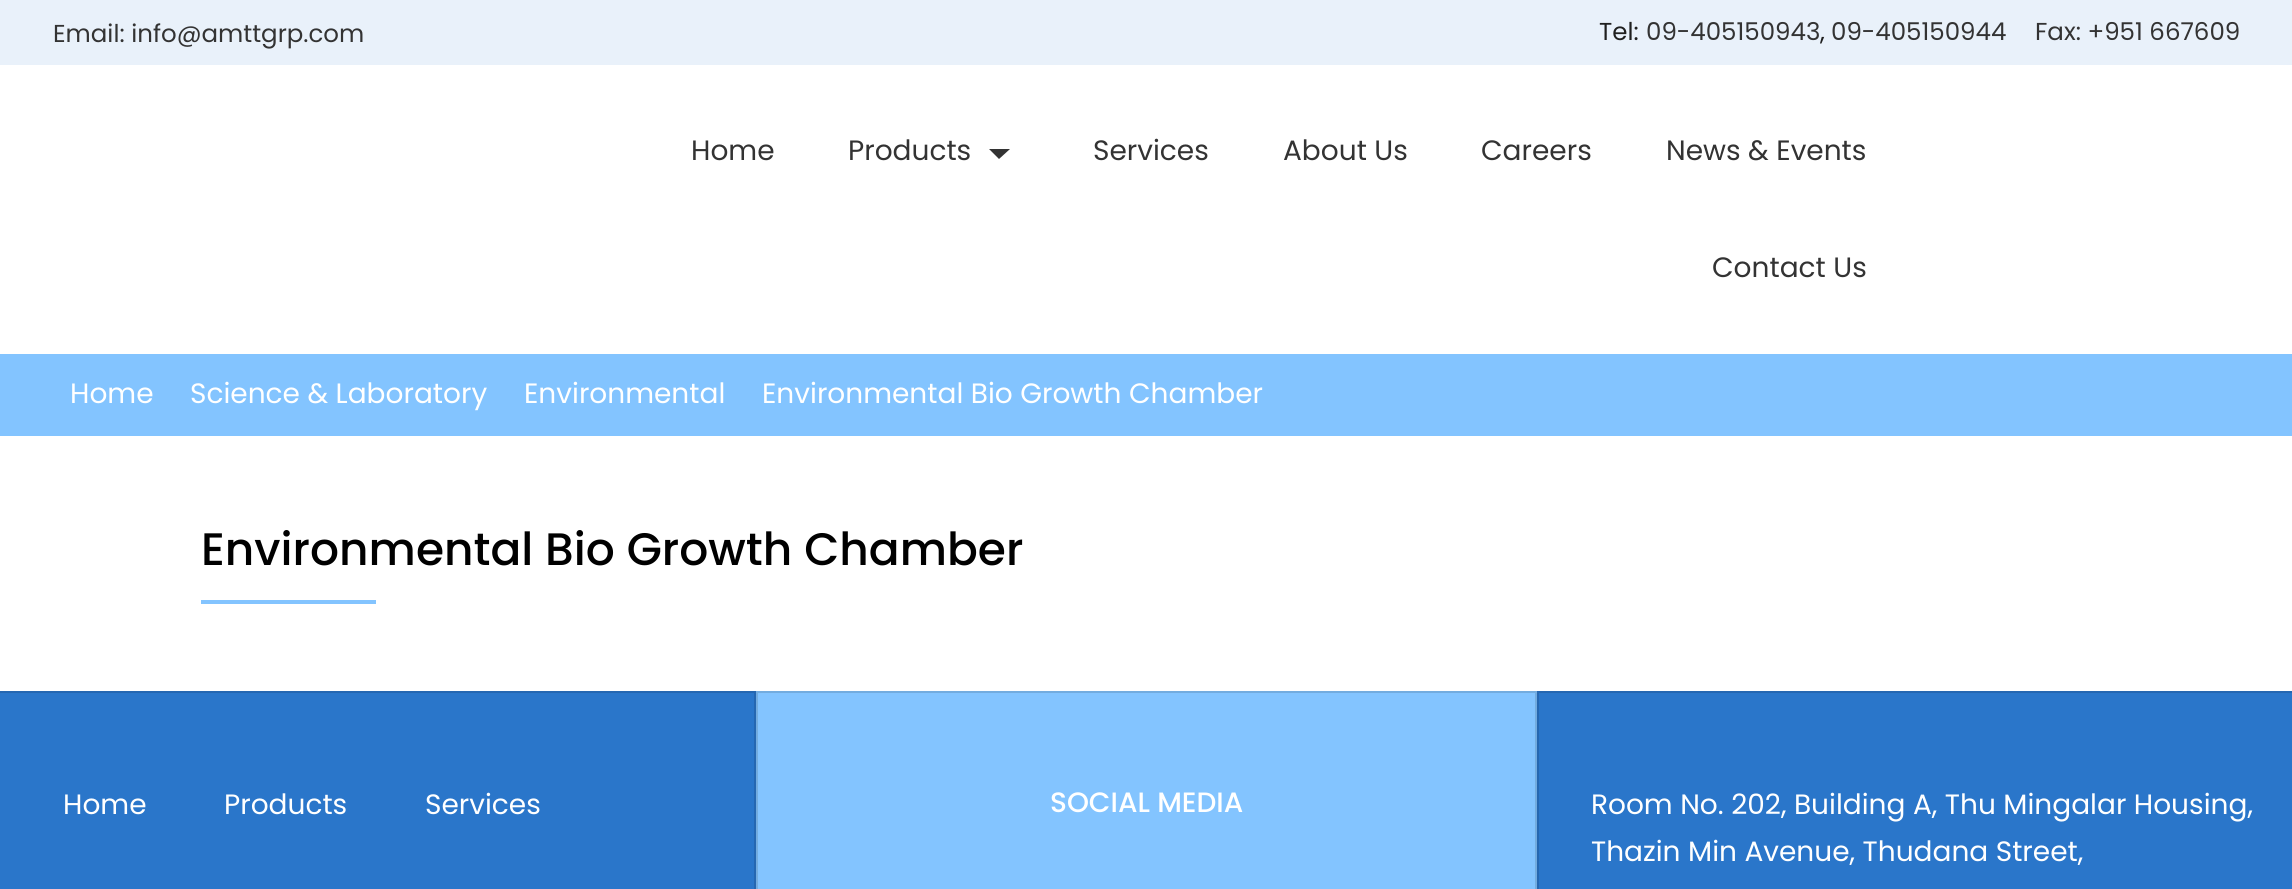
#include <cairo/cairo.h>
#include <math.h>
#include <stddef.h>


static void draw(cairo_t *cr) {
  cairo_set_source_rgb(cr, 1, 1, 1);
  cairo_paint(cr);
  cairo_set_source_rgb(cr, 233 / 255.0, 241 / 255.0, 250 / 255.0);
  cairo_rectangle(cr, 0, 0, 2292, 65);
  cairo_fill(cr);
  cairo_set_source_rgb(cr, 51 / 255.0, 51 / 255.0, 51 / 255.0);
  cairo_new_path(cr);
  cairo_move_to(cr, 989, 149);
  cairo_line_to(cr, 1010, 149);
  cairo_line_to(cr, 999, 159);
  cairo_close_path(cr);
  cairo_fill(cr);
  cairo_set_source_rgb(cr, 131 / 255.0, 196 / 255.0, 1);
  cairo_rectangle(cr, 0, 354, 2292, 82);
  cairo_fill(cr);
  cairo_rectangle(cr, 201, 600, 175, 4);
  cairo_fill(cr);
  cairo_set_source_rgb(cr, 42 / 255.0, 118 / 255.0, 202 / 255.0);
  cairo_rectangle(cr, -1, 692, 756, 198);
  cairo_fill_preserve(cr);
  cairo_set_source_rgb(cr, 37 / 255.0, 103 / 255.0, 177 / 255.0);
  cairo_stroke(cr);
  cairo_set_source_rgb(cr, 131 / 255.0, 196 / 255.0, 1);
  cairo_rectangle(cr, 757, 692, 779, 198);
  cairo_fill_preserve(cr);
  cairo_set_source_rgb(cr, 115 / 255.0, 172 / 255.0, 223 / 255.0);
  cairo_stroke(cr);
  cairo_set_source_rgb(cr, 42 / 255.0, 118 / 255.0, 202 / 255.0);
  cairo_rectangle(cr, 1538, 692, 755, 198);
  cairo_fill_preserve(cr);
  cairo_set_source_rgb(cr, 37 / 255.0, 103 / 255.0, 177 / 255.0);
  cairo_stroke(cr);
  cairo_select_font_face(cr, "Poppins", CAIRO_FONT_SLANT_NORMAL, CAIRO_FONT_WEIGHT_NORMAL);
  cairo_set_font_size(cr, 24.5);
  cairo_set_source_rgb(cr, 51 / 255.0, 51 / 255.0, 51 / 255.0);
  cairo_move_to(cr, 53, 42);
  cairo_show_text(cr, "Email: info@amttgrp.com");
  cairo_set_source_rgb(cr, 31 / 255.0, 31 / 255.0, 31 / 255.0);
  cairo_move_to(cr, 1599, 40);
  cairo_show_text(cr, "Tel:");
  cairo_set_source_rgb(cr, 51 / 255.0, 51 / 255.0, 51 / 255.0);
  cairo_move_to(cr, 1646, 40);
  cairo_show_text(cr, "09-405150943");
  cairo_set_source_rgb(cr, 31 / 255.0, 31 / 255.0, 31 / 255.0);
  cairo_move_to(cr, 1820, 40);
  cairo_show_text(cr, ",");
  cairo_set_source_rgb(cr, 51 / 255.0, 51 / 255.0, 51 / 255.0);
  cairo_move_to(cr, 1831, 40);
  cairo_show_text(cr, "09-405150944");
  cairo_move_to(cr, 2035, 40);
  cairo_show_text(cr, "Fax: +951 667609");
  cairo_set_font_size(cr, 28);
  cairo_move_to(cr, 691, 160);
  cairo_show_text(cr, "Home");
  cairo_move_to(cr, 848, 160);
  cairo_show_text(cr, "Products");
  cairo_move_to(cr, 1093, 160);
  cairo_show_text(cr, "Services");
  cairo_move_to(cr, 1283, 160);
  cairo_show_text(cr, "About Us");
  cairo_move_to(cr, 1481, 160);
  cairo_show_text(cr, "Careers");
  cairo_move_to(cr, 1666, 160);
  cairo_show_text(cr, "News & Events");
  cairo_move_to(cr, 1712, 277);
  cairo_show_text(cr, "Contact Us");
  cairo_set_source_rgb(cr, 1, 1, 1);
  cairo_move_to(cr, 70, 403);
  cairo_show_text(cr, "Home");
  cairo_move_to(cr, 190, 403);
  cairo_show_text(cr, "Science & Laboratory");
  cairo_move_to(cr, 524, 403);
  cairo_show_text(cr, "Environmental");
  cairo_move_to(cr, 762, 403);
  cairo_show_text(cr, "Environmental Bio Growth Chamber");
  cairo_select_font_face(cr, "Poppins Medium", CAIRO_FONT_SLANT_NORMAL, CAIRO_FONT_WEIGHT_NORMAL);
  cairo_set_font_size(cr, 45.5);
  cairo_set_source_rgb(cr, 0, 0, 0);
  cairo_move_to(cr, 201, 565);
  cairo_show_text(cr, "Environmental Bio Growth Chamber");
  cairo_select_font_face(cr, "Poppins", CAIRO_FONT_SLANT_NORMAL, CAIRO_FONT_WEIGHT_NORMAL);
  cairo_set_font_size(cr, 28);
  cairo_set_source_rgb(cr, 1, 1, 1);
  cairo_move_to(cr, 63, 814);
  cairo_show_text(cr, "Home");
  cairo_move_to(cr, 224, 814);
  cairo_show_text(cr, "Products");
  cairo_move_to(cr, 425, 814);
  cairo_show_text(cr, "Services");
  cairo_select_font_face(cr, "Poppins Medium", CAIRO_FONT_SLANT_NORMAL, CAIRO_FONT_WEIGHT_NORMAL);
  cairo_move_to(cr, 1050, 812);
  cairo_show_text(cr, "SOCIAL MEDIA");
  cairo_select_font_face(cr, "Poppins", CAIRO_FONT_SLANT_NORMAL, CAIRO_FONT_WEIGHT_NORMAL);
  cairo_move_to(cr, 1591, 814);
  cairo_show_text(cr, "Room No. 202, Building A, Thu Mingalar Housing,");
  cairo_move_to(cr, 1591, 861);
  cairo_show_text(cr, "Thazin Min Avenue, Thudana Street,");
}

int main(void) {
  cairo_surface_t *surface = cairo_image_surface_create(CAIRO_FORMAT_RGB24, 2292, 889);
  cairo_t *cr = cairo_create(surface);
  cairo_font_options_t *options = cairo_font_options_create();
  cairo_font_options_set_hint_metrics(options, CAIRO_HINT_METRICS_OFF);
  cairo_font_options_set_hint_style(options, CAIRO_HINT_STYLE_NONE);
  cairo_set_font_options(cr, options);
  cairo_set_miter_limit(cr, 4);
  draw(cr);
  cairo_surface_write_to_png(surface, "out.png");
  cairo_font_options_destroy(options);
  cairo_destroy(cr);
  cairo_surface_destroy(surface);
  return 0;
}
